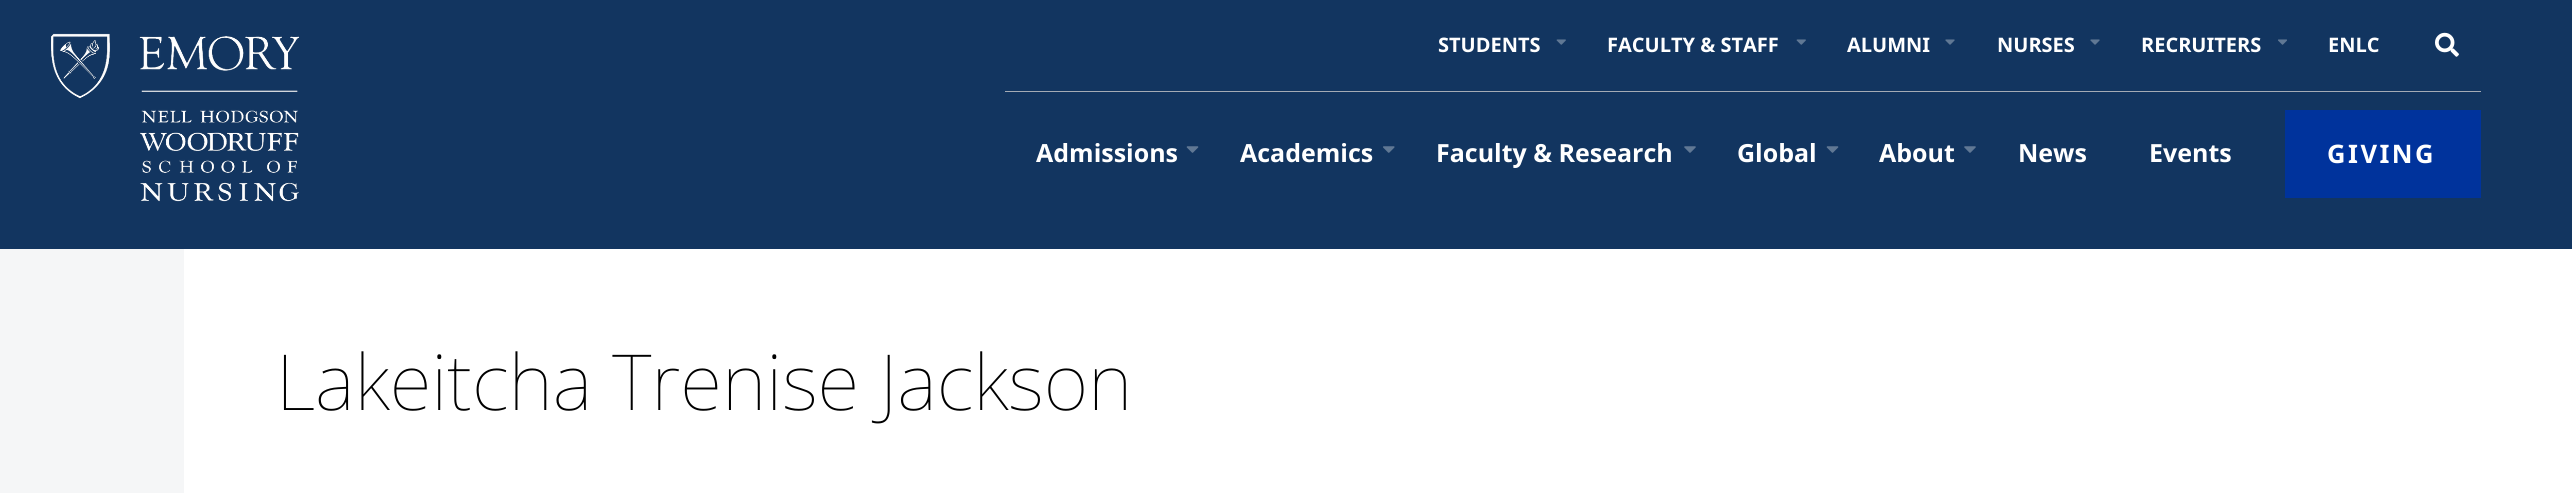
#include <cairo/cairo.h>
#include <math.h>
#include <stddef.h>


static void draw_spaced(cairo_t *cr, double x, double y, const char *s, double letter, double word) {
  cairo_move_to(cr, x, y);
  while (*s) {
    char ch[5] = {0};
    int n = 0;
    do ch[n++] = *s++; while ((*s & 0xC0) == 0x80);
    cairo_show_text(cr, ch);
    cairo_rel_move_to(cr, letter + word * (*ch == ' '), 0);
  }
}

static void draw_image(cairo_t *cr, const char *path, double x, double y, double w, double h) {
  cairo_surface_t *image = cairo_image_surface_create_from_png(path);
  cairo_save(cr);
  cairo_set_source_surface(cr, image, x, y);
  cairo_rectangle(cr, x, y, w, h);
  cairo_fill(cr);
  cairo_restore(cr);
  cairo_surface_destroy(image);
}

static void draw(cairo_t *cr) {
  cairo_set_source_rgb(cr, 18 / 255.0, 53 / 255.0, 96 / 255.0);
  cairo_paint(cr);
  draw_image(cr, "images/1.png", 51, 33, 249, 169);
  draw_image(cr, "images/2.png", 1556, 39, 10, 6);
  draw_image(cr, "images/2.png", 1796, 39, 10, 6);
  draw_image(cr, "images/3.png", 1945, 39, 10, 6);
  draw_image(cr, "images/3.png", 2090, 39, 10, 6);
  draw_image(cr, "images/4.png", 2278, 39, 9, 6);
  draw_image(cr, "images/5.png", 2435, 32, 24, 25);
  cairo_set_source_rgb(cr, 164 / 255.0, 171 / 255.0, 181 / 255.0);
  cairo_rectangle(cr, 1005, 91, 1476, 1);
  cairo_fill(cr);
  draw_image(cr, "images/6.png", 1186, 146, 13, 7);
  draw_image(cr, "images/7.png", 1383, 146, 12, 7);
  draw_image(cr, "images/8.png", 1684, 146, 12, 7);
  draw_image(cr, "images/6.png", 1826, 146, 13, 7);
  draw_image(cr, "images/8.png", 1964, 146, 12, 7);
  cairo_set_source_rgb(cr, 0, 51 / 255.0, 156 / 255.0);
  cairo_rectangle(cr, 2285, 110, 196, 88);
  cairo_fill(cr);
  cairo_set_source_rgb(cr, 245 / 255.0, 246 / 255.0, 247 / 255.0);
  cairo_rectangle(cr, 0, 249, 184, 244);
  cairo_fill(cr);
  cairo_set_source_rgb(cr, 1, 1, 1);
  cairo_rectangle(cr, 184, 249, 2388, 244);
  cairo_fill(cr);
  cairo_select_font_face(cr, "Noto Sans", CAIRO_FONT_SLANT_NORMAL, CAIRO_FONT_WEIGHT_BOLD);
  cairo_set_font_size(cr, 20);
  cairo_move_to(cr, 1438, 52);
  cairo_show_text(cr, "STUDENTS");
  cairo_move_to(cr, 1607, 52);
  cairo_show_text(cr, "FACULTY & STAFF");
  cairo_move_to(cr, 1847, 52);
  cairo_show_text(cr, "ALUMNI");
  cairo_move_to(cr, 1997, 52);
  cairo_show_text(cr, "NURSES");
  cairo_move_to(cr, 2141, 52);
  cairo_show_text(cr, "RECRUITERS");
  cairo_move_to(cr, 2328, 52);
  cairo_show_text(cr, "ENLC");
  cairo_set_font_size(cr, 25);
  cairo_move_to(cr, 1036, 162);
  cairo_show_text(cr, "Admissions");
  cairo_move_to(cr, 1240, 162);
  cairo_show_text(cr, "Academics");
  cairo_move_to(cr, 1436, 162);
  cairo_show_text(cr, "Faculty & Research");
  cairo_move_to(cr, 1737, 162);
  cairo_show_text(cr, "Global");
  cairo_move_to(cr, 1879, 162);
  cairo_show_text(cr, "About");
  cairo_move_to(cr, 2018, 162);
  cairo_show_text(cr, "News");
  cairo_move_to(cr, 2149, 162);
  cairo_show_text(cr, "Events");
  cairo_set_font_size(cr, 25.5);
  draw_spaced(cr, 2327, 163, "GIVING", 2.5, 0);
  cairo_select_font_face(cr, "Noto Sans Thin", CAIRO_FONT_SLANT_NORMAL, CAIRO_FONT_WEIGHT_NORMAL);
  cairo_set_font_size(cr, 77.25);
  cairo_set_source_rgb(cr, 0, 0, 0);
  cairo_move_to(cr, 276, 410);
  cairo_show_text(cr, "Lakeitcha Trenise Jackson");
}

int main(void) {
  cairo_surface_t *surface = cairo_image_surface_create(CAIRO_FORMAT_RGB24, 2572, 493);
  cairo_t *cr = cairo_create(surface);
  cairo_font_options_t *options = cairo_font_options_create();
  cairo_font_options_set_hint_metrics(options, CAIRO_HINT_METRICS_OFF);
  cairo_font_options_set_hint_style(options, CAIRO_HINT_STYLE_NONE);
  cairo_set_font_options(cr, options);
  cairo_set_miter_limit(cr, 4);
  draw(cr);
  cairo_surface_write_to_png(surface, "out.png");
  cairo_font_options_destroy(options);
  cairo_destroy(cr);
  cairo_surface_destroy(surface);
  return 0;
}
